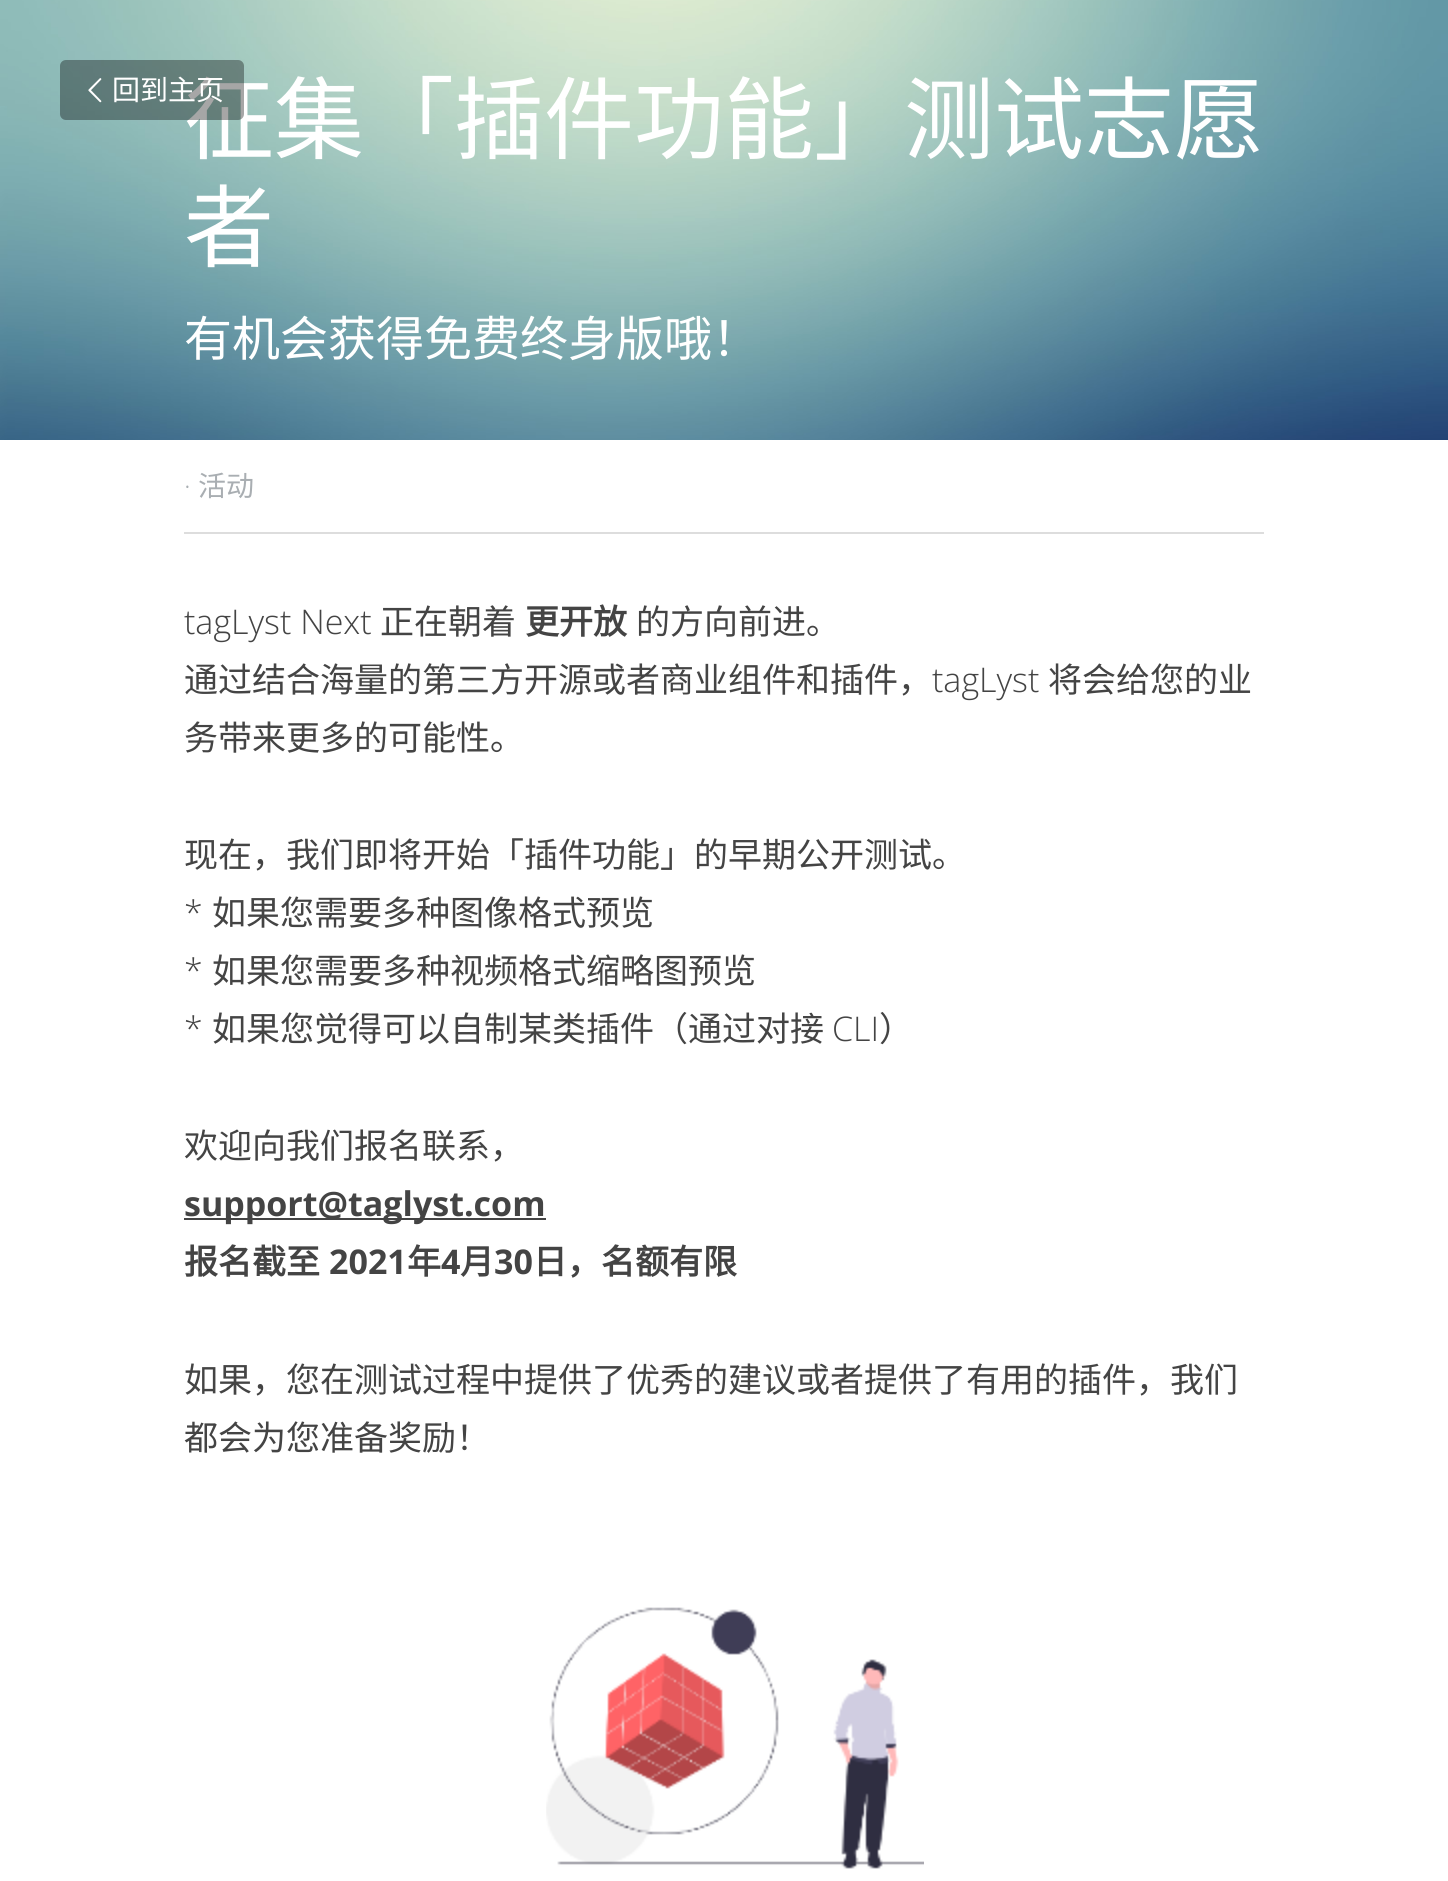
#include <cairo/cairo.h>
#include <math.h>
#include <stddef.h>


static void rounded_rect(cairo_t *cr, double x, double y, double w, double h, double r) {
  cairo_new_sub_path(cr);
  cairo_arc(cr, x + w - r, y + h - r, r, 0, M_PI / 2);
  cairo_arc(cr, x + r, y + h - r, r, M_PI / 2, M_PI);
  cairo_arc(cr, x + r, y + r, r, M_PI, 1.5 * M_PI);
  cairo_arc(cr, x + w - r, y + r, r, 1.5 * M_PI, 2 * M_PI);
  cairo_close_path(cr);
}

static void draw_image(cairo_t *cr, const char *path, double x, double y, double w, double h) {
  cairo_surface_t *image = cairo_image_surface_create_from_png(path);
  cairo_save(cr);
  cairo_set_source_surface(cr, image, x, y);
  cairo_rectangle(cr, x, y, w, h);
  cairo_fill(cr);
  cairo_restore(cr);
  cairo_surface_destroy(image);
}

static void draw(cairo_t *cr) {
  cairo_set_source_rgb(cr, 1, 1, 1);
  cairo_paint(cr);
  draw_image(cr, "images/1.png", 0, 0, 1448, 440);
  cairo_set_source_rgb(cr, 221 / 255.0, 221 / 255.0, 221 / 255.0);
  cairo_rectangle(cr, 184, 532, 1080, 2);
  cairo_fill(cr);
  cairo_set_source_rgb(cr, 68 / 255.0, 68 / 255.0, 68 / 255.0);
  cairo_rectangle(cr, 184, 1218, 362, 2);
  cairo_fill(cr);
  draw_image(cr, "images/3.png", 546, 1607, 378, 262);
  cairo_select_font_face(cr, "Noto Sans CJK SC", CAIRO_FONT_SLANT_NORMAL, CAIRO_FONT_WEIGHT_NORMAL);
  cairo_set_font_size(cr, 90);
  cairo_set_source_rgb(cr, 1, 1, 1);
  cairo_move_to(cr, 184, 152);
  cairo_show_text(cr, "征集「插件功能」测试志愿");
  cairo_set_source_rgba(cr, 0, 0, 0, 0.35);
  rounded_rect(cr, 60, 60, 184, 60, 6);
  cairo_fill(cr);
  cairo_set_font_size(cr, 28);
  cairo_set_source_rgb(cr, 1, 1, 1);
  cairo_move_to(cr, 112, 100);
  cairo_show_text(cr, "回到主页");
  draw_image(cr, "images/2.png", 88, 78, 14, 25);
  cairo_set_font_size(cr, 90);
  cairo_move_to(cr, 184, 260);
  cairo_show_text(cr, "者");
  cairo_set_font_size(cr, 48);
  cairo_move_to(cr, 184, 356);
  cairo_show_text(cr, "有机会获得免费终身版哦！");
  cairo_select_font_face(cr, "Open Sans Light", CAIRO_FONT_SLANT_NORMAL, CAIRO_FONT_WEIGHT_NORMAL);
  cairo_set_font_size(cr, 28);
  cairo_set_source_rgb(cr, 169 / 255.0, 174 / 255.0, 178 / 255.0);
  cairo_move_to(cr, 184, 496);
  cairo_show_text(cr, "·");
  cairo_select_font_face(cr, "Noto Sans CJK SC", CAIRO_FONT_SLANT_NORMAL, CAIRO_FONT_WEIGHT_NORMAL);
  cairo_move_to(cr, 198, 496);
  cairo_show_text(cr, "活动");
  cairo_select_font_face(cr, "Open Sans Light", CAIRO_FONT_SLANT_NORMAL, CAIRO_FONT_WEIGHT_NORMAL);
  cairo_set_font_size(cr, 34);
  cairo_set_source_rgb(cr, 68 / 255.0, 68 / 255.0, 68 / 255.0);
  cairo_move_to(cr, 184, 634);
  cairo_show_text(cr, "tagLyst Next");
  cairo_select_font_face(cr, "Noto Sans CJK SC", CAIRO_FONT_SLANT_NORMAL, CAIRO_FONT_WEIGHT_NORMAL);
  cairo_move_to(cr, 380, 634);
  cairo_show_text(cr, "正在朝着");
  cairo_select_font_face(cr, "Noto Sans CJK SC", CAIRO_FONT_SLANT_NORMAL, CAIRO_FONT_WEIGHT_BOLD);
  cairo_move_to(cr, 525, 634);
  cairo_show_text(cr, "更开放");
  cairo_select_font_face(cr, "Noto Sans CJK SC", CAIRO_FONT_SLANT_NORMAL, CAIRO_FONT_WEIGHT_NORMAL);
  cairo_move_to(cr, 636, 634);
  cairo_show_text(cr, "的方向前进。");
  cairo_move_to(cr, 184, 692);
  cairo_show_text(cr, "通过结合海量的第三方开源或者商业组件和插件，");
  cairo_select_font_face(cr, "Open Sans Light", CAIRO_FONT_SLANT_NORMAL, CAIRO_FONT_WEIGHT_NORMAL);
  cairo_move_to(cr, 932, 692);
  cairo_show_text(cr, "tagLyst");
  cairo_select_font_face(cr, "Noto Sans CJK SC", CAIRO_FONT_SLANT_NORMAL, CAIRO_FONT_WEIGHT_NORMAL);
  cairo_move_to(cr, 1048, 692);
  cairo_show_text(cr, "将会给您的业");
  cairo_move_to(cr, 184, 750);
  cairo_show_text(cr, "务带来更多的可能性。");
  cairo_move_to(cr, 184, 867);
  cairo_show_text(cr, "现在，我们即将开始「插件功能」的早期公开测试。");
  cairo_select_font_face(cr, "Open Sans Light", CAIRO_FONT_SLANT_NORMAL, CAIRO_FONT_WEIGHT_NORMAL);
  cairo_move_to(cr, 184, 925);
  cairo_show_text(cr, "*");
  cairo_select_font_face(cr, "Noto Sans CJK SC", CAIRO_FONT_SLANT_NORMAL, CAIRO_FONT_WEIGHT_NORMAL);
  cairo_move_to(cr, 212, 925);
  cairo_show_text(cr, "如果您需要多种图像格式预览");
  cairo_select_font_face(cr, "Open Sans Light", CAIRO_FONT_SLANT_NORMAL, CAIRO_FONT_WEIGHT_NORMAL);
  cairo_move_to(cr, 184, 983);
  cairo_show_text(cr, "*");
  cairo_select_font_face(cr, "Noto Sans CJK SC", CAIRO_FONT_SLANT_NORMAL, CAIRO_FONT_WEIGHT_NORMAL);
  cairo_move_to(cr, 212, 983);
  cairo_show_text(cr, "如果您需要多种视频格式缩略图预览");
  cairo_select_font_face(cr, "Open Sans Light", CAIRO_FONT_SLANT_NORMAL, CAIRO_FONT_WEIGHT_NORMAL);
  cairo_move_to(cr, 184, 1041);
  cairo_show_text(cr, "*");
  cairo_select_font_face(cr, "Noto Sans CJK SC", CAIRO_FONT_SLANT_NORMAL, CAIRO_FONT_WEIGHT_NORMAL);
  cairo_move_to(cr, 212, 1041);
  cairo_show_text(cr, "如果您觉得可以自制某类插件（通过对接");
  cairo_select_font_face(cr, "Open Sans Light", CAIRO_FONT_SLANT_NORMAL, CAIRO_FONT_WEIGHT_NORMAL);
  cairo_move_to(cr, 832, 1041);
  cairo_show_text(cr, "CLI");
  cairo_select_font_face(cr, "Noto Sans CJK SC", CAIRO_FONT_SLANT_NORMAL, CAIRO_FONT_WEIGHT_NORMAL);
  cairo_move_to(cr, 879, 1041);
  cairo_show_text(cr, "）");
  cairo_move_to(cr, 184, 1158);
  cairo_show_text(cr, "欢迎向我们报名联系，");
  cairo_select_font_face(cr, "Open Sans", CAIRO_FONT_SLANT_NORMAL, CAIRO_FONT_WEIGHT_BOLD);
  cairo_move_to(cr, 184, 1216);
  cairo_show_text(cr, "support@taglyst.com");
  cairo_select_font_face(cr, "Noto Sans CJK SC", CAIRO_FONT_SLANT_NORMAL, CAIRO_FONT_WEIGHT_BOLD);
  cairo_move_to(cr, 184, 1274);
  cairo_show_text(cr, "报名截至");
  cairo_select_font_face(cr, "Open Sans", CAIRO_FONT_SLANT_NORMAL, CAIRO_FONT_WEIGHT_BOLD);
  cairo_move_to(cr, 329, 1274);
  cairo_show_text(cr, "2021");
  cairo_select_font_face(cr, "Noto Sans CJK SC", CAIRO_FONT_SLANT_NORMAL, CAIRO_FONT_WEIGHT_BOLD);
  cairo_move_to(cr, 407, 1274);
  cairo_show_text(cr, "年");
  cairo_select_font_face(cr, "Open Sans", CAIRO_FONT_SLANT_NORMAL, CAIRO_FONT_WEIGHT_BOLD);
  cairo_move_to(cr, 441, 1274);
  cairo_show_text(cr, "4");
  cairo_select_font_face(cr, "Noto Sans CJK SC", CAIRO_FONT_SLANT_NORMAL, CAIRO_FONT_WEIGHT_BOLD);
  cairo_move_to(cr, 460, 1274);
  cairo_show_text(cr, "月");
  cairo_select_font_face(cr, "Open Sans", CAIRO_FONT_SLANT_NORMAL, CAIRO_FONT_WEIGHT_BOLD);
  cairo_move_to(cr, 494, 1274);
  cairo_show_text(cr, "30");
  cairo_select_font_face(cr, "Noto Sans CJK SC", CAIRO_FONT_SLANT_NORMAL, CAIRO_FONT_WEIGHT_BOLD);
  cairo_move_to(cr, 533, 1274);
  cairo_show_text(cr, "日，名额有限");
  cairo_select_font_face(cr, "Noto Sans CJK SC", CAIRO_FONT_SLANT_NORMAL, CAIRO_FONT_WEIGHT_NORMAL);
  cairo_move_to(cr, 184, 1392);
  cairo_show_text(cr, "如果，您在测试过程中提供了优秀的建议或者提供了有用的插件，我们");
  cairo_move_to(cr, 184, 1450);
  cairo_show_text(cr, "都会为您准备奖励！");
}

int main(void) {
  cairo_surface_t *surface = cairo_image_surface_create(CAIRO_FORMAT_RGB24, 1448, 1881);
  cairo_t *cr = cairo_create(surface);
  cairo_font_options_t *options = cairo_font_options_create();
  cairo_font_options_set_hint_metrics(options, CAIRO_HINT_METRICS_OFF);
  cairo_font_options_set_hint_style(options, CAIRO_HINT_STYLE_NONE);
  cairo_set_font_options(cr, options);
  cairo_set_miter_limit(cr, 4);
  draw(cr);
  cairo_surface_write_to_png(surface, "out.png");
  cairo_font_options_destroy(options);
  cairo_destroy(cr);
  cairo_surface_destroy(surface);
  return 0;
}
